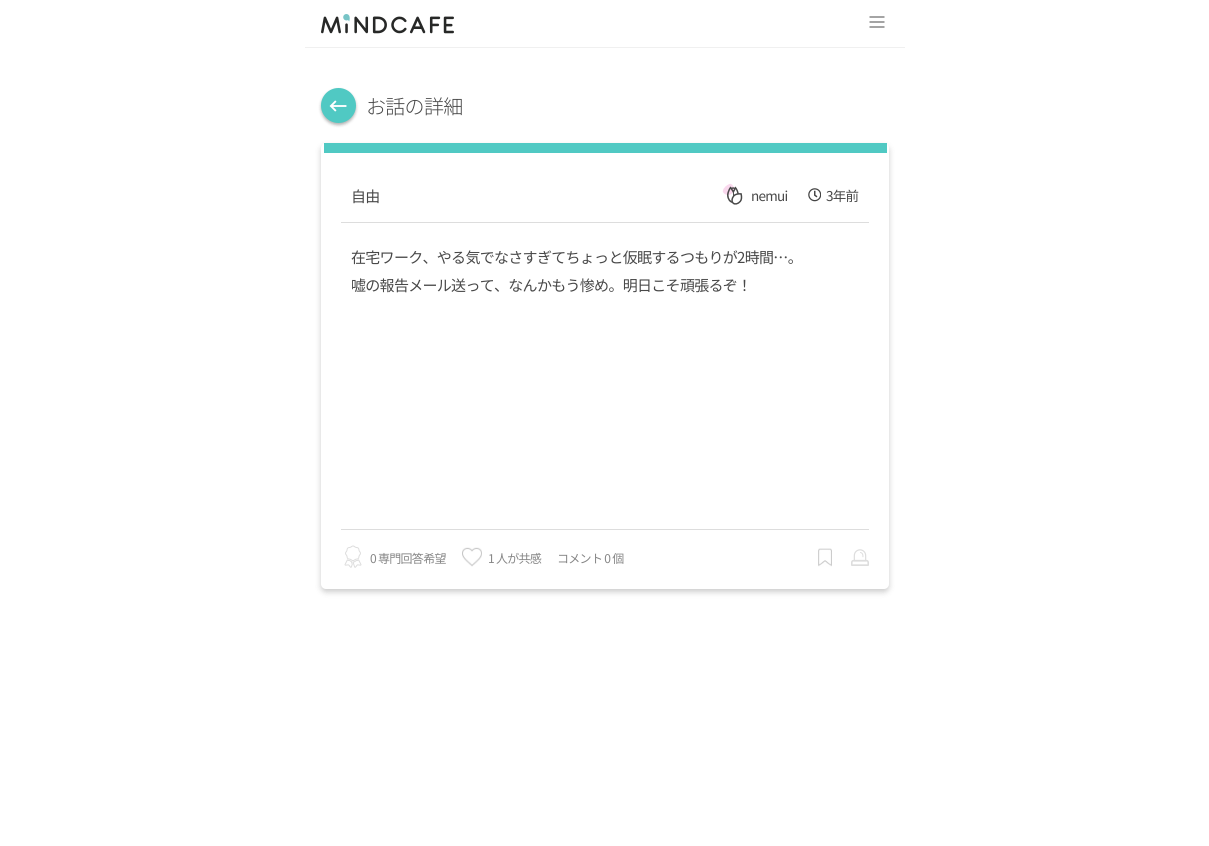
#include <cairo/cairo.h>
#include <math.h>
#include <stddef.h>


static void draw_spaced(cairo_t *cr, double x, double y, const char *s, double letter, double word) {
  cairo_move_to(cr, x, y);
  while (*s) {
    char ch[5] = {0};
    int n = 0;
    do ch[n++] = *s++; while ((*s & 0xC0) == 0x80);
    cairo_show_text(cr, ch);
    cairo_rel_move_to(cr, letter + word * (*ch == ' '), 0);
  }
}

static void rounded_rect(cairo_t *cr, double x, double y, double w, double h, double r) {
  cairo_new_sub_path(cr);
  cairo_arc(cr, x + w - r, y + h - r, r, 0, M_PI / 2);
  cairo_arc(cr, x + r, y + h - r, r, M_PI / 2, M_PI);
  cairo_arc(cr, x + r, y + r, r, M_PI, 1.5 * M_PI);
  cairo_arc(cr, x + w - r, y + r, r, 1.5 * M_PI, 2 * M_PI);
  cairo_close_path(cr);
}

static void draw_shadow(cairo_t *cr, double x, double y, double w, double h, double r, double blur, double alpha) {
  cairo_push_group_with_content(cr, CAIRO_CONTENT_ALPHA);
  cairo_set_operator(cr, CAIRO_OPERATOR_SOURCE);
  for (int i = 15; i >= -15 && fmin(w, h) + blur * i / 3 > 0; i -= 2) {
    double e = blur * i / 6;
    cairo_set_source_rgba(cr, 0, 0, 0, alpha * erfc((i - 1) / 8.5) / 2);
    rounded_rect(cr, x - e, y - e, w + 2 * e, h + 2 * e, fmax(0, fmin(r + e + blur * .6, fmin(w, h) / 2 + e)));
    cairo_fill(cr);
  }
  cairo_pattern_t *soft = cairo_pop_group(cr);
  cairo_mask(cr, soft);
  cairo_pattern_destroy(soft);
}

static void draw_image(cairo_t *cr, const char *path, double x, double y, double w, double h) {
  cairo_surface_t *image = cairo_image_surface_create_from_png(path);
  cairo_save(cr);
  cairo_set_source_surface(cr, image, x, y);
  cairo_rectangle(cr, x, y, w, h);
  cairo_fill(cr);
  cairo_restore(cr);
  cairo_surface_destroy(image);
}

static void draw(cairo_t *cr) {
  cairo_set_source_rgb(cr, 1, 1, 1);
  cairo_paint(cr);
  cairo_set_source_rgb(cr, 240 / 255.0, 240 / 255.0, 240 / 255.0);
  cairo_rectangle(cr, 305, 47, 600, 1);
  cairo_fill(cr);
  draw_image(cr, "images/1.png", 321, 14, 133, 20);
  draw_image(cr, "images/2.png", 869, 16, 16, 12);
  cairo_set_source_rgb(cr, 0, 0, 0);
  draw_shadow(cr, 321, 90, 35, 35, 17.5, 1.5, 0.3);
  cairo_set_source_rgb(cr, 80 / 255.0, 201 / 255.0, 195 / 255.0);
  cairo_arc(cr, 338.5, 105.5, 17.5, 0, 2 * M_PI);
  cairo_fill(cr);
  draw_image(cr, "images/3.png", 329, 100, 18, 12);
  cairo_set_source_rgb(cr, 0, 0, 0);
  draw_shadow(cr, 321, 146, 568, 446, 5, 3, 0.2);
  cairo_set_source_rgb(cr, 1, 1, 1);
  rounded_rect(cr, 321, 143, 568, 446, 5);
  cairo_fill(cr);
  cairo_set_source_rgb(cr, 80 / 255.0, 201 / 255.0, 195 / 255.0);
  cairo_rectangle(cr, 324, 143, 563, 10);
  cairo_fill(cr);
  cairo_set_source_rgb(cr, 221 / 255.0, 221 / 255.0, 221 / 255.0);
  cairo_rectangle(cr, 341, 222, 528, 1);
  cairo_fill(cr);
  draw_image(cr, "images/4.png", 722, 183, 21, 22);
  draw_image(cr, "images/5.png", 808, 188, 13, 14);
  cairo_rectangle(cr, 341, 529, 528, 1);
  cairo_fill(cr);
  draw_image(cr, "images/6.png", 344, 545, 18, 23);
  draw_image(cr, "images/7.png", 462, 547, 20, 20);
  draw_image(cr, "images/8.png", 818, 548, 14, 19);
  draw_image(cr, "images/9.png", 851, 549, 18, 17);
  cairo_select_font_face(cr, "Noto Sans JP Light", CAIRO_FONT_SLANT_NORMAL, CAIRO_FONT_WEIGHT_NORMAL);
  cairo_set_font_size(cr, 20);
  cairo_set_source_rgb(cr, 72 / 255.0, 72 / 255.0, 72 / 255.0);
  draw_spaced(cr, 366, 114, "お話の詳細", -0.7, 0);
  cairo_select_font_face(cr, "Noto Sans JP", CAIRO_FONT_SLANT_NORMAL, CAIRO_FONT_WEIGHT_NORMAL);
  cairo_set_font_size(cr, 15);
  draw_spaced(cr, 351, 202, "自由", -0.7, 0);
  cairo_set_font_size(cr, 13.5);
  draw_spaced(cr, 751, 201, "nemui", -0.7, 0);
  draw_spaced(cr, 826, 201, "3年前", -0.7, 0);
  cairo_set_font_size(cr, 15);
  draw_spaced(cr, 351, 263, "在宅ワーク、やる気でなさすぎてちょっと仮眠するつもりが2時間…。", -0.7, 0);
  draw_spaced(cr, 351, 291, "嘘の報告メール送って、なんかもう惨め。明日こそ頑張るぞ！", -0.7, 0);
  cairo_set_font_size(cr, 12);
  cairo_set_source_rgb(cr, 134 / 255.0, 134 / 255.0, 134 / 255.0);
  draw_spaced(cr, 370, 563, "0 専門回答希望", -0.7, 0);
  draw_spaced(cr, 488, 563, "1 人が共感", -0.7, 0);
  draw_spaced(cr, 557, 563, "コメント 0 個", -0.7, 0);
}

int main(void) {
  cairo_surface_t *surface = cairo_image_surface_create(CAIRO_FORMAT_RGB24, 1209, 846);
  cairo_t *cr = cairo_create(surface);
  cairo_font_options_t *options = cairo_font_options_create();
  cairo_font_options_set_hint_metrics(options, CAIRO_HINT_METRICS_OFF);
  cairo_font_options_set_hint_style(options, CAIRO_HINT_STYLE_NONE);
  cairo_set_font_options(cr, options);
  cairo_set_miter_limit(cr, 4);
  draw(cr);
  cairo_surface_write_to_png(surface, "out.png");
  cairo_font_options_destroy(options);
  cairo_destroy(cr);
  cairo_surface_destroy(surface);
  return 0;
}
